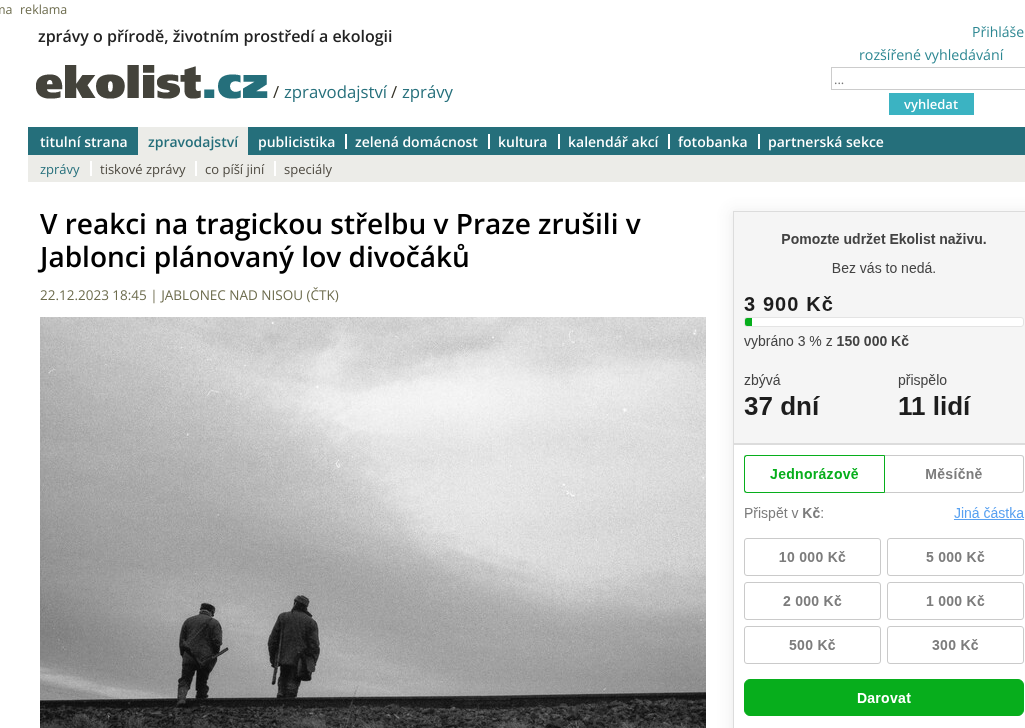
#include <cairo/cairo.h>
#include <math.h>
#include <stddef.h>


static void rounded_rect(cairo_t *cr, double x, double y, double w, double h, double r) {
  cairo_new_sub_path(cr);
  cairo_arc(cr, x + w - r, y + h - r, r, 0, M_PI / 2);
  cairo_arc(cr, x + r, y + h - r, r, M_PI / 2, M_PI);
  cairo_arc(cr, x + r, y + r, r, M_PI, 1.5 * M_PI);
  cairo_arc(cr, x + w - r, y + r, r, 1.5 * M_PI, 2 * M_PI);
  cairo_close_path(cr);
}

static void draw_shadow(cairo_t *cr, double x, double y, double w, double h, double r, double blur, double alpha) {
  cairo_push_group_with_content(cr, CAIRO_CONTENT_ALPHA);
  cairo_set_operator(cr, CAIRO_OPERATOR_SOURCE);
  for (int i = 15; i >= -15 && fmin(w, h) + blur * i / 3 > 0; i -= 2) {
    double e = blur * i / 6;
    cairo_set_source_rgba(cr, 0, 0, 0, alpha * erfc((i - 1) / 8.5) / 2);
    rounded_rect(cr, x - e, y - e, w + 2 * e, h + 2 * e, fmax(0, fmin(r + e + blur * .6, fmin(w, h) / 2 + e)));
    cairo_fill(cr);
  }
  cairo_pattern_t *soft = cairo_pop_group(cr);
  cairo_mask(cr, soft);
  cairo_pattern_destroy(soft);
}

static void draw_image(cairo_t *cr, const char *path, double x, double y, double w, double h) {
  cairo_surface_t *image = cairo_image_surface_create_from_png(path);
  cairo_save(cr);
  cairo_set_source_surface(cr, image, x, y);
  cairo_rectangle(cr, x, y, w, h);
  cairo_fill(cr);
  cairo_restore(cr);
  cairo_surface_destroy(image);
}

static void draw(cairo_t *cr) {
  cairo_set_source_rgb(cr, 1, 1, 1);
  cairo_paint(cr);
  draw_image(cr, "images/1.png", 36, 65, 232, 34);
  cairo_rectangle(cr, 831.5, 67.5, 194, 22);
  cairo_set_source_rgb(cr, 204 / 255.0, 204 / 255.0, 204 / 255.0);
  cairo_set_line_width(cr, 1);
  cairo_stroke(cr);
  cairo_set_source_rgb(cr, 59 / 255.0, 179 / 255.0, 194 / 255.0);
  cairo_rectangle(cr, 889, 93, 85, 22);
  cairo_fill(cr);
  cairo_set_source_rgb(cr, 37 / 255.0, 111 / 255.0, 123 / 255.0);
  cairo_rectangle(cr, 28, 127, 997, 28);
  cairo_fill(cr);
  cairo_set_source_rgb(cr, 236 / 255.0, 236 / 255.0, 232 / 255.0);
  cairo_rectangle(cr, 138, 127, 110, 28);
  cairo_fill(cr);
  cairo_set_source_rgb(cr, 1, 1, 1);
  cairo_rectangle(cr, 345, 134, 2, 15);
  cairo_fill(cr);
  cairo_rectangle(cr, 488, 134, 2, 15);
  cairo_fill(cr);
  cairo_rectangle(cr, 558, 134, 2, 15);
  cairo_fill(cr);
  cairo_rectangle(cr, 668, 134, 2, 15);
  cairo_fill(cr);
  cairo_rectangle(cr, 758, 134, 2, 15);
  cairo_fill(cr);
  cairo_set_source_rgb(cr, 236 / 255.0, 236 / 255.0, 232 / 255.0);
  cairo_rectangle(cr, 28, 155, 997, 27);
  cairo_fill(cr);
  cairo_set_source_rgb(cr, 1, 1, 1);
  cairo_rectangle(cr, 90, 161, 2, 15);
  cairo_fill(cr);
  cairo_rectangle(cr, 195, 161, 2, 15);
  cairo_fill(cr);
  cairo_rectangle(cr, 274, 161, 2, 15);
  cairo_fill(cr);
  draw_image(cr, "images/2.png", 40, 317, 666, 411);
  cairo_save(cr);
  cairo_set_fill_rule(cr, CAIRO_FILL_RULE_EVEN_ODD);
  cairo_new_path(cr);
  cairo_move_to(cr, 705, 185);
  cairo_line_to(cr, 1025, 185);
  cairo_line_to(cr, 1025, 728);
  cairo_line_to(cr, 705, 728);
  cairo_close_path(cr);
  cairo_move_to(cr, 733, 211);
  cairo_line_to(cr, 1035, 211);
  cairo_line_to(cr, 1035, 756);
  cairo_line_to(cr, 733, 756);
  cairo_close_path(cr);
  cairo_clip(cr);
  cairo_set_source_rgb(cr, 0, 0, 0);
  draw_shadow(cr, 733, 213, 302, 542, 0, 9, 0.09);
  cairo_restore(cr);
  cairo_rectangle(cr, 733.5, 211.5, 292, 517);
  cairo_set_source_rgb(cr, 220 / 255.0, 220 / 255.0, 220 / 255.0);
  cairo_stroke(cr);
  draw_image(cr, "images/3.png", 734, 212, 291, 504);
  cairo_select_font_face(cr, "Open Sans", CAIRO_FONT_SLANT_NORMAL, CAIRO_FONT_WEIGHT_NORMAL);
  cairo_set_font_size(cr, 12.5);
  cairo_set_source_rgb(cr, 107 / 255.0, 106 / 255.0, 75 / 255.0);
  cairo_move_to(cr, -6, 14);
  cairo_show_text(cr, "ma");
  cairo_move_to(cr, 20, 14);
  cairo_show_text(cr, "reklama");
  cairo_select_font_face(cr, "Open Sans SemiBold", CAIRO_FONT_SLANT_NORMAL, CAIRO_FONT_WEIGHT_NORMAL);
  cairo_set_font_size(cr, 16);
  cairo_set_source_rgb(cr, 34 / 255.0, 34 / 255.0, 34 / 255.0);
  cairo_move_to(cr, 38, 42);
  cairo_show_text(cr, "zprávy o přírodě, životním prostředí a ekologii");
  cairo_select_font_face(cr, "Open Sans", CAIRO_FONT_SLANT_NORMAL, CAIRO_FONT_WEIGHT_NORMAL);
  cairo_set_font_size(cr, 14);
  cairo_set_source_rgb(cr, 43 / 255.0, 134 / 255.0, 145 / 255.0);
  cairo_move_to(cr, 972, 37);
  cairo_show_text(cr, "Přihláše");
  cairo_set_font_size(cr, 16.75);
  cairo_set_source_rgb(cr, 52 / 255.0, 49 / 255.0, 38 / 255.0);
  cairo_move_to(cr, 273, 98);
  cairo_show_text(cr, "/");
  cairo_set_source_rgb(cr, 37 / 255.0, 111 / 255.0, 123 / 255.0);
  cairo_move_to(cr, 284, 98);
  cairo_show_text(cr, "zpravodajství");
  cairo_set_source_rgb(cr, 52 / 255.0, 49 / 255.0, 38 / 255.0);
  cairo_move_to(cr, 391, 98);
  cairo_show_text(cr, "/");
  cairo_set_source_rgb(cr, 37 / 255.0, 111 / 255.0, 123 / 255.0);
  cairo_move_to(cr, 402, 98);
  cairo_show_text(cr, "zprávy");
  cairo_set_font_size(cr, 14.25);
  cairo_set_source_rgb(cr, 43 / 255.0, 134 / 255.0, 145 / 255.0);
  cairo_move_to(cr, 859, 60);
  cairo_show_text(cr, "rozšířené vyhledávání");
  cairo_set_font_size(cr, 13);
  cairo_set_source_rgb(cr, 117 / 255.0, 117 / 255.0, 117 / 255.0);
  cairo_move_to(cr, 834, 84);
  cairo_show_text(cr, "...");
  cairo_select_font_face(cr, "Open Sans SemiBold", CAIRO_FONT_SLANT_NORMAL, CAIRO_FONT_WEIGHT_NORMAL);
  cairo_set_source_rgb(cr, 1, 1, 1);
  cairo_move_to(cr, 904, 109);
  cairo_show_text(cr, "vyhledat");
  cairo_set_font_size(cr, 14);
  cairo_move_to(cr, 40, 147);
  cairo_show_text(cr, "titulní strana");
  cairo_set_source_rgb(cr, 37 / 255.0, 111 / 255.0, 123 / 255.0);
  cairo_move_to(cr, 148, 147);
  cairo_show_text(cr, "zpravodajství");
  cairo_set_source_rgb(cr, 1, 1, 1);
  cairo_move_to(cr, 258, 147);
  cairo_show_text(cr, "publicistika");
  cairo_move_to(cr, 355, 147);
  cairo_show_text(cr, "zelená domácnost");
  cairo_move_to(cr, 498, 147);
  cairo_show_text(cr, "kultura");
  cairo_move_to(cr, 568, 147);
  cairo_show_text(cr, "kalendář akcí");
  cairo_move_to(cr, 678, 147);
  cairo_show_text(cr, "fotobanka");
  cairo_move_to(cr, 768, 147);
  cairo_show_text(cr, "partnerská sekce");
  cairo_select_font_face(cr, "Open Sans", CAIRO_FONT_SLANT_NORMAL, CAIRO_FONT_WEIGHT_NORMAL);
  cairo_set_font_size(cr, 13);
  cairo_set_source_rgb(cr, 37 / 255.0, 111 / 255.0, 123 / 255.0);
  cairo_move_to(cr, 40, 174);
  cairo_show_text(cr, "zprávy");
  cairo_set_source_rgb(cr, 76 / 255.0, 72 / 255.0, 63 / 255.0);
  cairo_move_to(cr, 100, 174);
  cairo_show_text(cr, "tiskové zprávy");
  cairo_move_to(cr, 205, 174);
  cairo_show_text(cr, "co píší jiní");
  cairo_move_to(cr, 284, 174);
  cairo_show_text(cr, "speciály");
  cairo_select_font_face(cr, "Open Sans SemiBold", CAIRO_FONT_SLANT_NORMAL, CAIRO_FONT_WEIGHT_NORMAL);
  cairo_set_font_size(cr, 28);
  cairo_set_source_rgb(cr, 0, 0, 0);
  cairo_move_to(cr, 40, 234);
  cairo_show_text(cr, "V reakci na tragickou střelbu v Praze zrušili v");
  cairo_move_to(cr, 40, 267);
  cairo_show_text(cr, "Jablonci plánovaný lov divočáků");
  cairo_select_font_face(cr, "Open Sans", CAIRO_FONT_SLANT_NORMAL, CAIRO_FONT_WEIGHT_NORMAL);
  cairo_set_font_size(cr, 13.5);
  cairo_set_source_rgb(cr, 107 / 255.0, 106 / 255.0, 75 / 255.0);
  cairo_move_to(cr, 40, 300);
  cairo_show_text(cr, "22.12.2023 18:45 | JABLONEC NAD NISOU (ČTK)");
}

int main(void) {
  cairo_surface_t *surface = cairo_image_surface_create(CAIRO_FORMAT_RGB24, 1025, 728);
  cairo_t *cr = cairo_create(surface);
  cairo_font_options_t *options = cairo_font_options_create();
  cairo_font_options_set_hint_metrics(options, CAIRO_HINT_METRICS_OFF);
  cairo_font_options_set_hint_style(options, CAIRO_HINT_STYLE_NONE);
  cairo_set_font_options(cr, options);
  cairo_set_miter_limit(cr, 4);
  draw(cr);
  cairo_surface_write_to_png(surface, "out.png");
  cairo_font_options_destroy(options);
  cairo_destroy(cr);
  cairo_surface_destroy(surface);
  return 0;
}
